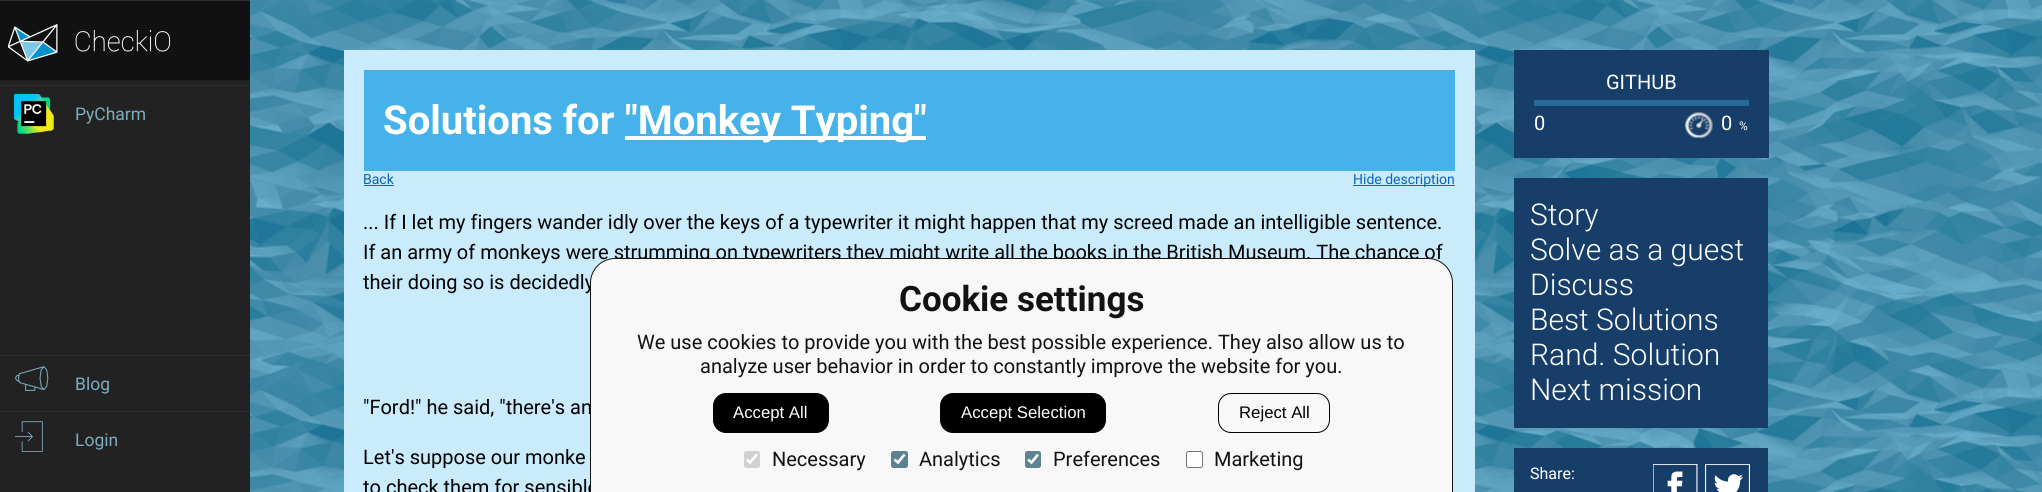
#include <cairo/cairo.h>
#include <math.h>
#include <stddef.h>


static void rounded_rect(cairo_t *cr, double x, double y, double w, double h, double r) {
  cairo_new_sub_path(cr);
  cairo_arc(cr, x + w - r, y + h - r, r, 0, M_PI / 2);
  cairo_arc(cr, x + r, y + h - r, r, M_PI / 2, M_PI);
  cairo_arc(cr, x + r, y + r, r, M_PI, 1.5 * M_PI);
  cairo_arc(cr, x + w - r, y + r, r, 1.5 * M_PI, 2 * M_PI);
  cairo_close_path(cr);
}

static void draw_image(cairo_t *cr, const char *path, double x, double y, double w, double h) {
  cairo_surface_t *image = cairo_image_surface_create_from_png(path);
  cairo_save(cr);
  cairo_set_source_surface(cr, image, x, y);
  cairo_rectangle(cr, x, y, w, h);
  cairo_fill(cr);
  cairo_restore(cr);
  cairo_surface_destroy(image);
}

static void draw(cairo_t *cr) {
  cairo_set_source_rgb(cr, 1, 1, 1);
  cairo_paint(cr);
  draw_image(cr, "images/1.png", 250, 0, 1792, 492);
  cairo_set_source_rgb(cr, 34 / 255.0, 34 / 255.0, 34 / 255.0);
  cairo_rectangle(cr, 0, 80, 250, 412);
  cairo_fill(cr);
  cairo_set_source_rgb(cr, 17 / 255.0, 17 / 255.0, 17 / 255.0);
  cairo_rectangle(cr, 0, 1, 250, 79);
  cairo_fill(cr);
  cairo_set_source_rgb(cr, 45 / 255.0, 45 / 255.0, 45 / 255.0);
  cairo_rectangle(cr, 0, 0, 250, 1);
  cairo_fill(cr);
  draw_image(cr, "images/2.png", 8, 24, 50, 38);
  draw_image(cr, "images/3.png", 75, 30, 96, 22);
  cairo_rectangle(cr, 0, 85, 250, 1);
  cairo_fill(cr);
  draw_image(cr, "images/4.png", 13, 93, 41, 41);
  cairo_rectangle(cr, 0, 355, 250, 1);
  cairo_fill(cr);
  draw_image(cr, "images/5.png", 15, 366, 34, 25);
  cairo_rectangle(cr, 0, 411, 250, 1);
  cairo_fill(cr);
  draw_image(cr, "images/6.png", 15, 421, 28, 31);
  cairo_set_source_rgb(cr, 201 / 255.0, 235 / 255.0, 251 / 255.0);
  cairo_rectangle(cr, 344, 50, 1131, 442);
  cairo_fill(cr);
  cairo_set_source_rgb(cr, 69 / 255.0, 179 / 255.0, 234 / 255.0);
  cairo_rectangle(cr, 364, 70, 1091, 101);
  cairo_fill(cr);
  cairo_set_source_rgb(cr, 1, 1, 1);
  cairo_rectangle(cr, 625, 136, 301, 4);
  cairo_fill(cr);
  cairo_set_source_rgb(cr, 12 / 255.0, 100 / 255.0, 180 / 255.0);
  cairo_rectangle(cr, 364, 185, 30, 1);
  cairo_fill(cr);
  cairo_rectangle(cr, 1353, 185, 102, 1);
  cairo_fill(cr);
  cairo_set_source_rgb(cr, 22 / 255.0, 62 / 255.0, 105 / 255.0);
  cairo_rectangle(cr, 1514, 50, 255, 108);
  cairo_fill(cr);
  cairo_set_source_rgb(cr, 38 / 255.0, 107 / 255.0, 151 / 255.0);
  cairo_rectangle(cr, 1534, 100, 215, 6);
  cairo_fill(cr);
  draw_image(cr, "images/7.png", 1685, 112, 28, 26);
  cairo_set_source_rgb(cr, 22 / 255.0, 62 / 255.0, 105 / 255.0);
  cairo_rectangle(cr, 1514, 178, 254, 250);
  cairo_fill(cr);
  cairo_rectangle(cr, 1514, 448, 254, 44);
  cairo_fill(cr);
  draw_image(cr, "images/8.png", 1653, 464, 45, 28);
  draw_image(cr, "images/9.png", 1705, 464, 45, 28);
  cairo_select_font_face(cr, "Roboto", CAIRO_FONT_SLANT_NORMAL, CAIRO_FONT_WEIGHT_NORMAL);
  cairo_set_font_size(cr, 17.5);
  cairo_set_source_rgb(cr, 125 / 255.0, 172 / 255.0, 191 / 255.0);
  cairo_move_to(cr, 75, 120);
  cairo_show_text(cr, "PyCharm");
  cairo_move_to(cr, 75, 390);
  cairo_show_text(cr, "Blog");
  cairo_move_to(cr, 75, 446);
  cairo_show_text(cr, "Login");
  cairo_select_font_face(cr, "Roboto", CAIRO_FONT_SLANT_NORMAL, CAIRO_FONT_WEIGHT_BOLD);
  cairo_set_font_size(cr, 40);
  cairo_set_source_rgb(cr, 1, 1, 1);
  cairo_move_to(cr, 383, 134);
  cairo_show_text(cr, "Solutions for");
  cairo_move_to(cr, 625, 134);
  cairo_show_text(cr, "\"Monkey Typing\"");
  cairo_select_font_face(cr, "Roboto", CAIRO_FONT_SLANT_NORMAL, CAIRO_FONT_WEIGHT_NORMAL);
  cairo_set_font_size(cr, 14);
  cairo_set_source_rgb(cr, 12 / 255.0, 100 / 255.0, 180 / 255.0);
  cairo_move_to(cr, 363, 184);
  cairo_show_text(cr, "Back");
  cairo_move_to(cr, 1353, 184);
  cairo_show_text(cr, "Hide description");
  cairo_set_font_size(cr, 20);
  cairo_set_source_rgb(cr, 0, 0, 0);
  cairo_move_to(cr, 363, 229);
  cairo_show_text(cr, "... If I let my fingers wander idly over the keys of a typewriter it might happen that my screed made an intelligible sentence.");
  cairo_move_to(cr, 363, 259);
  cairo_show_text(cr, "If an army of monkeys were strumming on typewriters they might write all the books in the British Museum. The chance of");
  cairo_move_to(cr, 363, 289);
  cairo_show_text(cr, "their doing so is decidedly");
  cairo_move_to(cr, 363, 414);
  cairo_show_text(cr, "\"Ford!\" he said, \"there's an");
  cairo_move_to(cr, 363, 464);
  cairo_show_text(cr, "Let's suppose our monke");
  cairo_move_to(cr, 363, 494);
  cairo_show_text(cr, "to check them for sensible");
  cairo_set_source_rgb(cr, 1, 1, 1);
  cairo_move_to(cr, 1606, 89);
  cairo_show_text(cr, "GITHUB");
  cairo_move_to(cr, 1534, 130);
  cairo_show_text(cr, "0");
  cairo_move_to(cr, 1721, 130);
  cairo_show_text(cr, "0");
  cairo_set_font_size(cr, 12);
  cairo_move_to(cr, 1739, 130);
  cairo_show_text(cr, "%");
  cairo_select_font_face(cr, "Roboto Light", CAIRO_FONT_SLANT_NORMAL, CAIRO_FONT_WEIGHT_NORMAL);
  cairo_set_font_size(cr, 30);
  cairo_move_to(cr, 1530, 225);
  cairo_show_text(cr, "Story");
  cairo_move_to(cr, 1530, 260);
  cairo_show_text(cr, "Solve as a guest");
  cairo_move_to(cr, 1530, 295);
  cairo_show_text(cr, "Discuss");
  cairo_move_to(cr, 1530, 330);
  cairo_show_text(cr, "Best Solutions");
  cairo_move_to(cr, 1530, 365);
  cairo_show_text(cr, "Rand. Solution");
  cairo_move_to(cr, 1530, 400);
  cairo_show_text(cr, "Next mission");
  cairo_select_font_face(cr, "Roboto", CAIRO_FONT_SLANT_NORMAL, CAIRO_FONT_WEIGHT_NORMAL);
  cairo_set_font_size(cr, 16);
  cairo_move_to(cr, 1530, 479);
  cairo_show_text(cr, "Share:");
  cairo_set_source_rgb(cr, 249 / 255.0, 248 / 255.0, 248 / 255.0);
  cairo_new_path(cr);
  cairo_move_to(cr, 615, 258.5);
  cairo_line_to(cr, 1428, 258.5);
  cairo_curve_to(cr, 1441.5, 258.5, 1452.5, 269.5, 1452.5, 283);
  cairo_line_to(cr, 1452.5, 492.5);
  cairo_line_to(cr, 590.5, 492.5);
  cairo_line_to(cr, 590.5, 283);
  cairo_curve_to(cr, 590.5, 269.5, 601.5, 258.5, 615, 258.5);
  cairo_close_path(cr);
  cairo_fill_preserve(cr);
  cairo_set_source_rgb(cr, 18 / 255.0, 18 / 255.0, 18 / 255.0);
  cairo_set_line_width(cr, 1);
  cairo_stroke(cr);
  cairo_select_font_face(cr, "Roboto", CAIRO_FONT_SLANT_NORMAL, CAIRO_FONT_WEIGHT_BOLD);
  cairo_set_font_size(cr, 35);
  cairo_move_to(cr, 899, 311);
  cairo_show_text(cr, "Cookie settings");
  cairo_select_font_face(cr, "Roboto", CAIRO_FONT_SLANT_NORMAL, CAIRO_FONT_WEIGHT_NORMAL);
  cairo_set_font_size(cr, 20);
  cairo_move_to(cr, 637, 349);
  cairo_show_text(cr, "We use cookies to provide you with the best possible experience. They also allow us to");
  cairo_move_to(cr, 700, 373);
  cairo_show_text(cr, "analyze user behavior in order to constantly improve the website for you.");
  cairo_set_source_rgb(cr, 0, 0, 0);
  rounded_rect(cr, 713.5, 393.5, 115, 39, 12.5);
  cairo_fill_preserve(cr);
  cairo_stroke(cr);
  cairo_select_font_face(cr, "Liberation Sans", CAIRO_FONT_SLANT_NORMAL, CAIRO_FONT_WEIGHT_NORMAL);
  cairo_set_font_size(cr, 16.75);
  cairo_set_source_rgb(cr, 1, 1, 1);
  cairo_move_to(cr, 733, 418);
  cairo_show_text(cr, "Accept All");
  cairo_set_source_rgb(cr, 0, 0, 0);
  rounded_rect(cr, 940.5, 393.5, 165, 39, 12.5);
  cairo_fill_preserve(cr);
  cairo_stroke(cr);
  cairo_set_source_rgb(cr, 1, 1, 1);
  cairo_move_to(cr, 961, 418);
  cairo_show_text(cr, "Accept Selection");
  rounded_rect(cr, 1218.5, 393.5, 111, 39, 12.5);
  cairo_set_source_rgb(cr, 0, 0, 0);
  cairo_stroke(cr);
  cairo_move_to(cr, 1239, 418);
  cairo_show_text(cr, "Reject All");
  cairo_set_source_rgb(cr, 210 / 255.0, 209 / 255.0, 209 / 255.0);
  rounded_rect(cr, 744, 451, 16, 17, 2.5);
  cairo_fill(cr);
  cairo_new_path(cr);
  cairo_move_to(cr, 747, 459.5);
  cairo_line_to(cr, 750, 462.5);
  cairo_line_to(cr, 757, 454.5);
  cairo_set_source_rgb(cr, 1, 1, 1);
  cairo_set_line_width(cr, 2.6);
  cairo_stroke(cr);
  cairo_select_font_face(cr, "Roboto", CAIRO_FONT_SLANT_NORMAL, CAIRO_FONT_WEIGHT_NORMAL);
  cairo_set_font_size(cr, 20);
  cairo_set_source_rgb(cr, 18 / 255.0, 18 / 255.0, 18 / 255.0);
  cairo_move_to(cr, 772, 466);
  cairo_show_text(cr, "Necessary");
  cairo_set_source_rgb(cr, 93 / 255.0, 130 / 255.0, 144 / 255.0);
  rounded_rect(cr, 891, 451, 17, 17, 2.5);
  cairo_fill(cr);
  cairo_new_path(cr);
  cairo_move_to(cr, 894.5, 459.5);
  cairo_line_to(cr, 898, 462.5);
  cairo_line_to(cr, 904.5, 454.5);
  cairo_set_source_rgb(cr, 1, 1, 1);
  cairo_stroke(cr);
  cairo_set_source_rgb(cr, 18 / 255.0, 18 / 255.0, 18 / 255.0);
  cairo_move_to(cr, 919, 466);
  cairo_show_text(cr, "Analytics");
  cairo_set_source_rgb(cr, 93 / 255.0, 130 / 255.0, 144 / 255.0);
  rounded_rect(cr, 1025, 451, 16, 17, 2.5);
  cairo_fill(cr);
  cairo_new_path(cr);
  cairo_move_to(cr, 1028, 459.5);
  cairo_line_to(cr, 1031.5, 462.5);
  cairo_line_to(cr, 1038, 454.5);
  cairo_set_source_rgb(cr, 1, 1, 1);
  cairo_stroke(cr);
  cairo_set_source_rgb(cr, 18 / 255.0, 18 / 255.0, 18 / 255.0);
  cairo_move_to(cr, 1053, 466);
  cairo_show_text(cr, "Preferences");
  cairo_set_source_rgb(cr, 1, 1, 1);
  rounded_rect(cr, 1186.5, 451.5, 16, 16, 2);
  cairo_fill_preserve(cr);
  cairo_set_source_rgb(cr, 118 / 255.0, 118 / 255.0, 118 / 255.0);
  cairo_set_line_width(cr, 1);
  cairo_stroke(cr);
  cairo_set_source_rgb(cr, 18 / 255.0, 18 / 255.0, 18 / 255.0);
  cairo_move_to(cr, 1214, 466);
  cairo_show_text(cr, "Marketing");
}

int main(void) {
  cairo_surface_t *surface = cairo_image_surface_create(CAIRO_FORMAT_RGB24, 2042, 492);
  cairo_t *cr = cairo_create(surface);
  cairo_font_options_t *options = cairo_font_options_create();
  cairo_font_options_set_hint_metrics(options, CAIRO_HINT_METRICS_OFF);
  cairo_font_options_set_hint_style(options, CAIRO_HINT_STYLE_NONE);
  cairo_set_font_options(cr, options);
  cairo_set_miter_limit(cr, 4);
  draw(cr);
  cairo_surface_write_to_png(surface, "out.png");
  cairo_font_options_destroy(options);
  cairo_destroy(cr);
  cairo_surface_destroy(surface);
  return 0;
}
